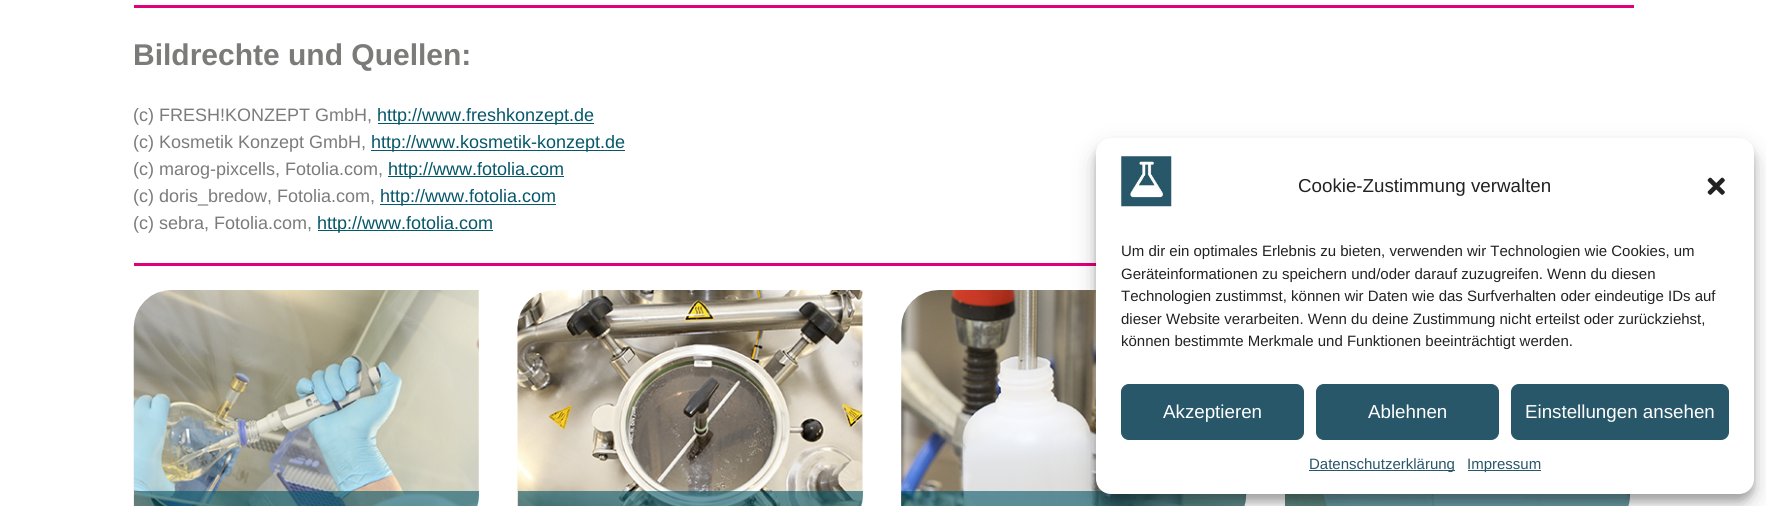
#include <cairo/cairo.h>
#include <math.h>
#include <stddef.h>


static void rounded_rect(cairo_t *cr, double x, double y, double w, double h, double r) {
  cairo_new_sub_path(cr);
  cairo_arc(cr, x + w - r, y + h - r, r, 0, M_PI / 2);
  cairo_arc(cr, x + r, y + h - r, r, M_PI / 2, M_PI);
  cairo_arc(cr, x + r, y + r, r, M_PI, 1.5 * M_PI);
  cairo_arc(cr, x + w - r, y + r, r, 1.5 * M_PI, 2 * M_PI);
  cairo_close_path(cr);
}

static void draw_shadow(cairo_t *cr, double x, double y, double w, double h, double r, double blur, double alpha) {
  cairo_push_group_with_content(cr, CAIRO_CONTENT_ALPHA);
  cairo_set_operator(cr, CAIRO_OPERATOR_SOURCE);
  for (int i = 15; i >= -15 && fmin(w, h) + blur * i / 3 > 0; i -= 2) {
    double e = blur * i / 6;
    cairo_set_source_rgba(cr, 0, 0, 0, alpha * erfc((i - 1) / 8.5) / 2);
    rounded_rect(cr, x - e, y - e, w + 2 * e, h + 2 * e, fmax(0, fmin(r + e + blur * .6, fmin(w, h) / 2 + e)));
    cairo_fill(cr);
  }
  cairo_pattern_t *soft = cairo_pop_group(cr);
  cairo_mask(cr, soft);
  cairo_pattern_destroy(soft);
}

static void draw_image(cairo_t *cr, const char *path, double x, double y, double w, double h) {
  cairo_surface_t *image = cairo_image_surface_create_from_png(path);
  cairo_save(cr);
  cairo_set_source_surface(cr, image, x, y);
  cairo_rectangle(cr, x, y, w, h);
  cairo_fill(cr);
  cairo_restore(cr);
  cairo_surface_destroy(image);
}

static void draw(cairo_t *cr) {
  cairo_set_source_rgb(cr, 1, 1, 1);
  cairo_paint(cr);
  cairo_set_source_rgb(cr, 224 / 255.0, 0, 121 / 255.0);
  cairo_rectangle(cr, 134, 5, 1500, 3);
  cairo_fill(cr);
  cairo_set_source_rgb(cr, 5 / 255.0, 87 / 255.0, 105 / 255.0);
  cairo_rectangle(cr, 378, 123, 216, 1);
  cairo_fill(cr);
  cairo_rectangle(cr, 371, 150, 254, 1);
  cairo_fill(cr);
  cairo_rectangle(cr, 388, 176, 176, 1);
  cairo_fill(cr);
  cairo_rectangle(cr, 380, 204, 176, 1);
  cairo_fill(cr);
  cairo_rectangle(cr, 318, 230, 175, 1);
  cairo_fill(cr);
  cairo_set_source_rgb(cr, 224 / 255.0, 0, 121 / 255.0);
  cairo_rectangle(cr, 134, 263, 962, 3);
  cairo_fill(cr);
  draw_image(cr, "images/1.png", 133, 290, 346, 216);
  cairo_set_source_rgba(cr, 5 / 255.0, 87 / 255.0, 105 / 255.0, 0.6);
  cairo_new_path(cr);
  cairo_move_to(cr, 134, 491);
  cairo_line_to(cr, 479, 491);
  cairo_line_to(cr, 479, 495);
  cairo_curve_to(cr, 479, 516, 462, 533, 441, 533);
  cairo_line_to(cr, 134, 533);
  cairo_close_path(cr);
  cairo_fill(cr);
  draw_image(cr, "images/2.png", 517, 290, 346, 216);
  cairo_new_path(cr);
  cairo_move_to(cr, 518, 491);
  cairo_line_to(cr, 863, 491);
  cairo_line_to(cr, 863, 495);
  cairo_curve_to(cr, 863, 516, 846, 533, 825, 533);
  cairo_line_to(cr, 518, 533);
  cairo_close_path(cr);
  cairo_fill(cr);
  draw_image(cr, "images/3.png", 901, 290, 346, 216);
  cairo_new_path(cr);
  cairo_move_to(cr, 901, 491);
  cairo_line_to(cr, 1246, 491);
  cairo_line_to(cr, 1246, 495);
  cairo_curve_to(cr, 1246, 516, 1229, 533, 1208, 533);
  cairo_line_to(cr, 901, 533);
  cairo_close_path(cr);
  cairo_fill(cr);
  draw_image(cr, "images/4.png", 1285, 494, 345, 12);
  cairo_new_path(cr);
  cairo_move_to(cr, 1285, 491);
  cairo_line_to(cr, 1630, 491);
  cairo_line_to(cr, 1630, 495);
  cairo_curve_to(cr, 1630, 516, 1613, 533, 1592, 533);
  cairo_line_to(cr, 1285, 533);
  cairo_close_path(cr);
  cairo_fill(cr);
  cairo_set_source_rgb(cr, 0, 0, 0);
  draw_shadow(cr, 1096, 145, 658, 356, 15, 4, 0.23);
  draw_shadow(cr, 1096, 150, 658, 356, 15, 12.5, 0.19);
  cairo_set_source_rgb(cr, 1, 1, 1);
  rounded_rect(cr, 1096, 138, 658, 356, 15);
  cairo_fill(cr);
  draw_image(cr, "images/5.png", 1121, 156, 51, 51);
  draw_image(cr, "images/6.png", 1707, 177, 18, 18);
  cairo_set_source_rgb(cr, 40 / 255.0, 87 / 255.0, 105 / 255.0);
  rounded_rect(cr, 1121.5, 384.5, 182, 55, 7.5);
  cairo_fill_preserve(cr);
  cairo_set_line_width(cr, 1);
  cairo_stroke(cr);
  rounded_rect(cr, 1316.5, 384.5, 182, 55, 7.5);
  cairo_fill_preserve(cr);
  cairo_stroke(cr);
  rounded_rect(cr, 1511.5, 384.5, 217, 55, 7.5);
  cairo_fill_preserve(cr);
  cairo_stroke(cr);
  cairo_rectangle(cr, 1309, 470, 146, 1);
  cairo_fill(cr);
  cairo_rectangle(cr, 1468, 470, 73, 1);
  cairo_fill(cr);
  cairo_select_font_face(cr, "Liberation Sans", CAIRO_FONT_SLANT_NORMAL, CAIRO_FONT_WEIGHT_BOLD);
  cairo_set_font_size(cr, 30);
  cairo_set_source_rgb(cr, 123 / 255.0, 123 / 255.0, 122 / 255.0);
  cairo_move_to(cr, 133, 65);
  cairo_show_text(cr, "Bildrechte und Quellen:");
  cairo_select_font_face(cr, "Liberation Sans", CAIRO_FONT_SLANT_NORMAL, CAIRO_FONT_WEIGHT_NORMAL);
  cairo_set_font_size(cr, 18);
  cairo_move_to(cr, 133, 121);
  cairo_show_text(cr, "(c) FRESH!KONZEPT GmbH,");
  cairo_set_source_rgb(cr, 5 / 255.0, 87 / 255.0, 105 / 255.0);
  cairo_move_to(cr, 377, 121);
  cairo_show_text(cr, "http://www.freshkonzept.de");
  cairo_set_source_rgb(cr, 123 / 255.0, 123 / 255.0, 122 / 255.0);
  cairo_move_to(cr, 133, 148);
  cairo_show_text(cr, "(c) Kosmetik Konzept GmbH,");
  cairo_set_source_rgb(cr, 5 / 255.0, 87 / 255.0, 105 / 255.0);
  cairo_move_to(cr, 371, 148);
  cairo_show_text(cr, "http://www.kosmetik-konzept.de");
  cairo_set_source_rgb(cr, 123 / 255.0, 123 / 255.0, 122 / 255.0);
  cairo_move_to(cr, 133, 175);
  cairo_show_text(cr, "(c) marog-pixcells, Fotolia.com,");
  cairo_set_source_rgb(cr, 5 / 255.0, 87 / 255.0, 105 / 255.0);
  cairo_move_to(cr, 388, 175);
  cairo_show_text(cr, "http://www.fotolia.com");
  cairo_set_source_rgb(cr, 123 / 255.0, 123 / 255.0, 122 / 255.0);
  cairo_move_to(cr, 133, 202);
  cairo_show_text(cr, "(c) doris_bredow, Fotolia.com,");
  cairo_set_source_rgb(cr, 5 / 255.0, 87 / 255.0, 105 / 255.0);
  cairo_move_to(cr, 380, 202);
  cairo_show_text(cr, "http://www.fotolia.com");
  cairo_set_source_rgb(cr, 123 / 255.0, 123 / 255.0, 122 / 255.0);
  cairo_move_to(cr, 133, 229);
  cairo_show_text(cr, "(c) sebra, Fotolia.com,");
  cairo_set_source_rgb(cr, 5 / 255.0, 87 / 255.0, 105 / 255.0);
  cairo_move_to(cr, 317, 229);
  cairo_show_text(cr, "http://www.fotolia.com");
  cairo_set_font_size(cr, 18.75);
  cairo_set_source_rgb(cr, 34 / 255.0, 34 / 255.0, 34 / 255.0);
  cairo_move_to(cr, 1298, 192);
  cairo_show_text(cr, "Cookie-Zustimmung verwalten");
  cairo_set_font_size(cr, 15);
  cairo_move_to(cr, 1121, 256);
  cairo_show_text(cr, "Um dir ein optimales Erlebnis zu bieten, verwenden wir Technologien wie Cookies, um");
  cairo_move_to(cr, 1121, 279);
  cairo_show_text(cr, "Geräteinformationen zu speichern und/oder darauf zuzugreifen. Wenn du diesen");
  cairo_move_to(cr, 1121, 301);
  cairo_show_text(cr, "Technologien zustimmst, können wir Daten wie das Surfverhalten oder eindeutige IDs auf");
  cairo_move_to(cr, 1121, 324);
  cairo_show_text(cr, "dieser Website verarbeiten. Wenn du deine Zustimmung nicht erteilst oder zurückziehst,");
  cairo_move_to(cr, 1121, 346);
  cairo_show_text(cr, "können bestimmte Merkmale und Funktionen beeinträchtigt werden.");
  cairo_set_font_size(cr, 18.75);
  cairo_set_source_rgb(cr, 1, 1, 1);
  cairo_move_to(cr, 1163, 418);
  cairo_show_text(cr, "Akzeptieren");
  cairo_move_to(cr, 1368, 418);
  cairo_show_text(cr, "Ablehnen");
  cairo_move_to(cr, 1525, 418);
  cairo_show_text(cr, "Einstellungen ansehen");
  cairo_set_font_size(cr, 15);
  cairo_set_source_rgb(cr, 40 / 255.0, 87 / 255.0, 105 / 255.0);
  cairo_move_to(cr, 1309, 469);
  cairo_show_text(cr, "Datenschutzerklärung");
  cairo_move_to(cr, 1467, 469);
  cairo_show_text(cr, "Impressum");
}

int main(void) {
  cairo_surface_t *surface = cairo_image_surface_create(CAIRO_FORMAT_RGB24, 1766, 506);
  cairo_t *cr = cairo_create(surface);
  cairo_font_options_t *options = cairo_font_options_create();
  cairo_font_options_set_hint_metrics(options, CAIRO_HINT_METRICS_OFF);
  cairo_font_options_set_hint_style(options, CAIRO_HINT_STYLE_NONE);
  cairo_set_font_options(cr, options);
  cairo_set_miter_limit(cr, 4);
  draw(cr);
  cairo_surface_write_to_png(surface, "out.png");
  cairo_font_options_destroy(options);
  cairo_destroy(cr);
  cairo_surface_destroy(surface);
  return 0;
}
